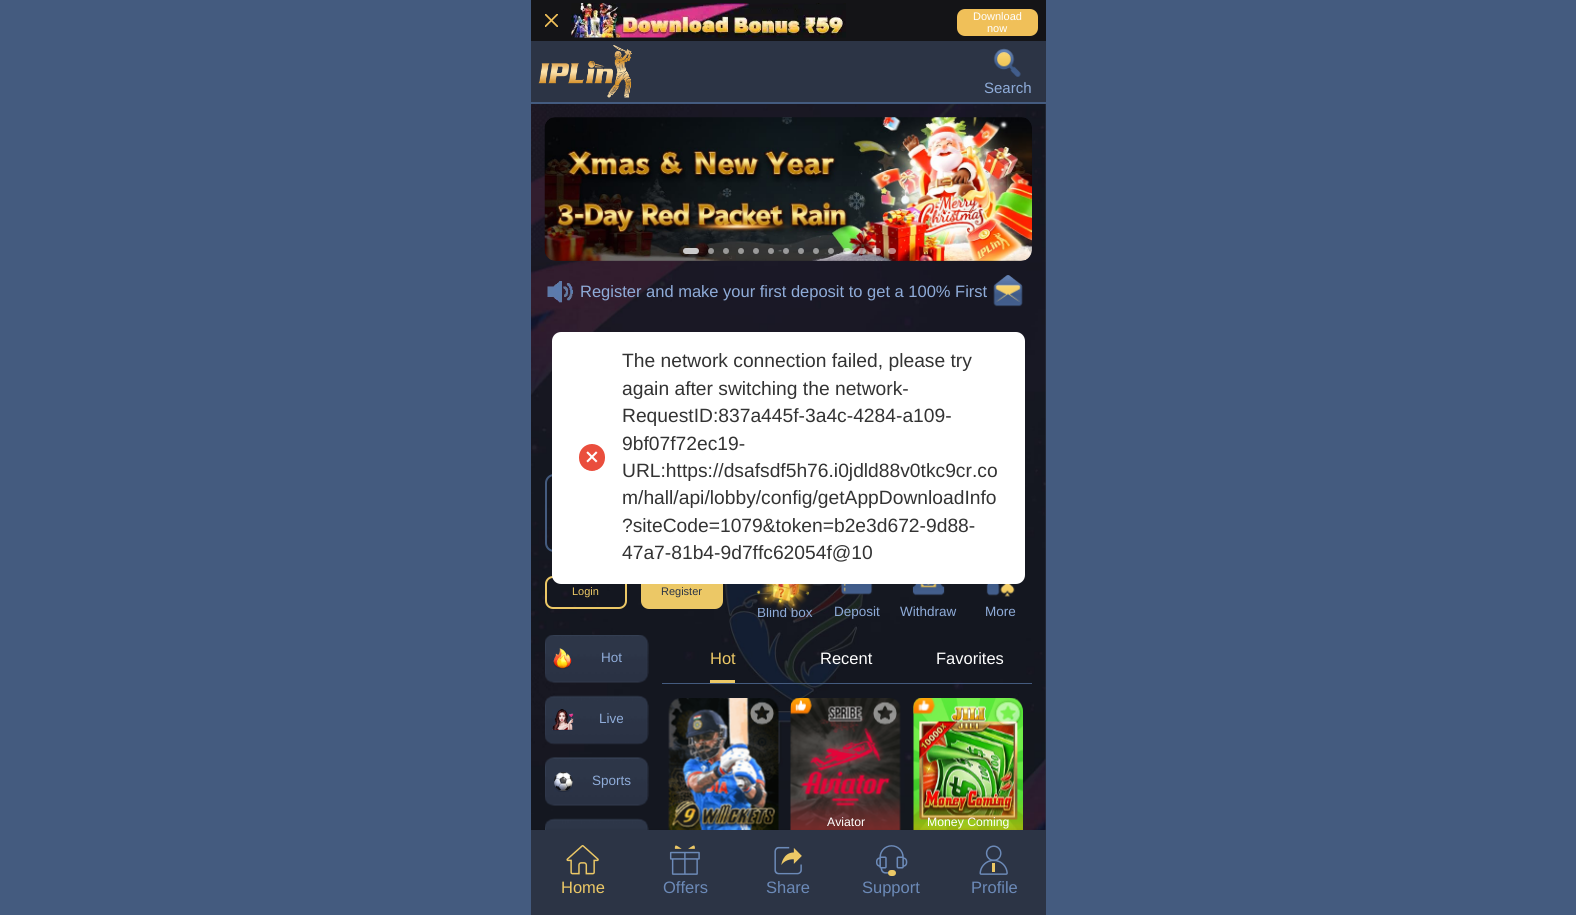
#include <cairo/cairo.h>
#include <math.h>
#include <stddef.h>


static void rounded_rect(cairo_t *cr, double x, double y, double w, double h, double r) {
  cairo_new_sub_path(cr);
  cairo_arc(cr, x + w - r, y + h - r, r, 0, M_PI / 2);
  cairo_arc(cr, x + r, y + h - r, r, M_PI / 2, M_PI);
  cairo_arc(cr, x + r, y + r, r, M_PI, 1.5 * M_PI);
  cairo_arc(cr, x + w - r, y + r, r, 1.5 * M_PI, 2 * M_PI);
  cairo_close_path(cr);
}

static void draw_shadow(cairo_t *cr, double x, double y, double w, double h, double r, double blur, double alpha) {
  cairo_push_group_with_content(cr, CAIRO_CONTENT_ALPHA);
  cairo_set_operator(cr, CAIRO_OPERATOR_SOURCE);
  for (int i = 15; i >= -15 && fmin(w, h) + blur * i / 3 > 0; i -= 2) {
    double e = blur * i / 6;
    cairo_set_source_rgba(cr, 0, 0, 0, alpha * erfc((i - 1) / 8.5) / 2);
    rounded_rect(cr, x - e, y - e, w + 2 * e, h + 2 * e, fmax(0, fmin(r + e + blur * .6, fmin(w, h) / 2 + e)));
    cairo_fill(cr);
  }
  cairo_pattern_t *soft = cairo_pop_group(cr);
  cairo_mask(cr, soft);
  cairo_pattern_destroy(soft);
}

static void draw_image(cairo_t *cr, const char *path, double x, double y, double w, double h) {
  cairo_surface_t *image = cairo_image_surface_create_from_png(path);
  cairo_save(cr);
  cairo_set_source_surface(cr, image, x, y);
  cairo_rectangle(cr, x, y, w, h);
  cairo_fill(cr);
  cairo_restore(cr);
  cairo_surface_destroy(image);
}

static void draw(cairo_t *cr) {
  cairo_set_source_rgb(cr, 68 / 255.0, 91 / 255.0, 127 / 255.0);
  cairo_paint(cr);
  cairo_set_source_rgb(cr, 44 / 255.0, 52 / 255.0, 69 / 255.0);
  cairo_rectangle(cr, 1045, 104, 1, 726);
  cairo_fill(cr);
  cairo_set_source_rgb(cr, 20 / 255.0, 20 / 255.0, 23 / 255.0);
  cairo_rectangle(cr, 531, 0, 515, 41);
  cairo_fill(cr);
  draw_image(cr, "images/1.png", 545, 14, 13, 13);
  draw_image(cr, "images/2.png", 571, 3, 275, 35);
  cairo_set_source_rgb(cr, 240 / 255.0, 192 / 255.0, 89 / 255.0);
  rounded_rect(cr, 958, 10, 79, 25, 7);
  cairo_fill_preserve(cr);
  cairo_stroke(cr);
  cairo_set_source_rgb(cr, 44 / 255.0, 52 / 255.0, 69 / 255.0);
  cairo_rectangle(cr, 531, 41, 515, 61);
  cairo_fill(cr);
  draw_image(cr, "images/3.png", 538, 45, 94, 53);
  draw_image(cr, "images/4.png", 993, 48, 28, 29);
  draw_image(cr, "images/5.png", 531, 104, 515, 726);
  draw_image(cr, "images/6.png", 544, 117, 488, 144);
  cairo_set_source_rgb(cr, 1, 1, 1);
  rounded_rect(cr, 683, 248, 16, 6, 3);
  cairo_fill(cr);
  cairo_set_source_rgba(cr, 0, 0, 0, 0.2);
  cairo_new_path(cr);
  cairo_move_to(cr, 686, 248);
  cairo_line_to(cr, 696.5, 248);
  cairo_curve_to(cr, 698, 248.5, 698.5, 249, 699, 250.5);
  cairo_curve_to(cr, 700, 254.5, 695, 254, 692.5, 254);
  cairo_line_to(cr, 686, 254);
  cairo_curve_to(cr, 682, 254, 682, 248, 686, 248);
  cairo_close_path(cr);
  cairo_fill(cr);
  cairo_set_source_rgba(cr, 1, 1, 1, 0.5);
  cairo_arc(cr, 711, 251, 3, 0, 2 * M_PI);
  cairo_fill(cr);
  cairo_arc(cr, 726, 251, 3, 0, 2 * M_PI);
  cairo_fill(cr);
  cairo_set_source_rgb(cr, 153 / 255.0, 153 / 255.0, 152 / 255.0);
  cairo_arc(cr, 741, 251, 3, 0, 2 * M_PI);
  cairo_fill(cr);
  cairo_set_source_rgb(cr, 154 / 255.0, 154 / 255.0, 154 / 255.0);
  cairo_arc(cr, 756, 251, 3, 0, 2 * M_PI);
  cairo_fill(cr);
  cairo_set_source_rgba(cr, 1, 1, 1, 0.5);
  cairo_arc(cr, 771, 251, 3, 0, 2 * M_PI);
  cairo_fill(cr);
  cairo_arc(cr, 786, 251, 3, 0, 2 * M_PI);
  cairo_fill(cr);
  cairo_arc(cr, 801, 251, 3, 0, 2 * M_PI);
  cairo_fill(cr);
  cairo_arc(cr, 816, 251, 3, 0, 2 * M_PI);
  cairo_fill(cr);
  cairo_arc(cr, 831, 251, 3, 0, 2 * M_PI);
  cairo_fill(cr);
  rounded_rect(cr, 843, 248, 8, 6, 3);
  cairo_fill(cr);
  rounded_rect(cr, 858, 248, 8, 6, 3);
  cairo_fill(cr);
  rounded_rect(cr, 873, 248, 8, 6, 3);
  cairo_fill(cr);
  rounded_rect(cr, 888, 248, 8, 6, 3);
  cairo_fill(cr);
  draw_image(cr, "images/7.png", 547, 281, 26, 22);
  draw_image(cr, "images/8.png", 993, 275, 30, 32);
  rounded_rect(cr, 546, 475, 172, 76, 8);
  cairo_set_source_rgb(cr, 68 / 255.0, 91 / 255.0, 127 / 255.0);
  cairo_stroke(cr);
  rounded_rect(cr, 546, 577, 80, 31, 7);
  cairo_set_source_rgb(cr, 236 / 255.0, 200 / 255.0, 102 / 255.0);
  cairo_stroke(cr);
  rounded_rect(cr, 642, 577, 80, 31, 7);
  cairo_fill_preserve(cr);
  cairo_stroke(cr);
  draw_image(cr, "images/10.png", 840, 584, 33, 11);
  draw_image(cr, "images/11.png", 912, 584, 33, 12);
  draw_image(cr, "images/12.png", 986, 584, 29, 13);
  draw_image(cr, "images/13.png", 545, 635, 104, 48);
  draw_image(cr, "images/14.png", 553, 648, 19, 21);
  draw_image(cr, "images/15.png", 545, 695, 104, 50);
  draw_image(cr, "images/16.png", 552, 709, 22, 22);
  draw_image(cr, "images/17.png", 545, 757, 104, 49);
  draw_image(cr, "images/18.png", 554, 772, 19, 20);
  draw_image(cr, "images/19.png", 545, 818, 104, 12);
  cairo_set_source_rgb(cr, 68 / 255.0, 91 / 255.0, 127 / 255.0);
  cairo_rectangle(cr, 662, 683, 370, 1);
  cairo_fill(cr);
  cairo_set_source_rgb(cr, 236 / 255.0, 200 / 255.0, 102 / 255.0);
  cairo_rectangle(cr, 710, 680, 25, 3);
  cairo_fill(cr);
  draw_image(cr, "images/20.png", 668, 698, 111, 132);
  draw_image(cr, "images/21.png", 750, 701, 24, 24);
  draw_image(cr, "images/22.png", 790, 698, 111, 132);
  draw_image(cr, "images/23.png", 790, 698, 22, 17);
  draw_image(cr, "images/24.png", 873, 701, 24, 24);
  draw_image(cr, "images/25.png", 913, 698, 110, 132);
  draw_image(cr, "images/26.png", 913, 698, 23, 17);
  cairo_save(cr);
  cairo_set_fill_rule(cr, CAIRO_FILL_RULE_EVEN_ODD);
  cairo_new_path(cr);
  cairo_move_to(cr, 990, 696);
  cairo_line_to(cr, 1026, 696);
  cairo_line_to(cr, 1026, 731);
  cairo_line_to(cr, 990, 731);
  cairo_close_path(cr);
  cairo_move_to(cr, 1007.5, 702);
  cairo_line_to(cr, 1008.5, 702);
  cairo_curve_to(cr, 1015, 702, 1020, 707, 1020, 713.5);
  cairo_curve_to(cr, 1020, 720, 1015, 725, 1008.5, 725);
  cairo_line_to(cr, 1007.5, 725);
  cairo_curve_to(cr, 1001, 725, 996, 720, 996, 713.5);
  cairo_curve_to(cr, 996, 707, 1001, 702, 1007.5, 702);
  cairo_close_path(cr);
  cairo_clip(cr);
  cairo_set_source_rgb(cr, 0, 0, 0);
  draw_shadow(cr, 996, 702, 24, 23, 11.5, 1.5, 0.3);
  cairo_restore(cr);
  draw_image(cr, "images/27.png", 996, 701, 25, 24);
  cairo_save(cr);
  cairo_rectangle(cr, 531, 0, 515, 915);
  cairo_clip(cr);
  cairo_set_source_rgb(cr, 0, 0, 0);
  draw_shadow(cr, 533, 830, 514, 85, 0, 2, 0.1);
  cairo_restore(cr);
  cairo_set_source_rgb(cr, 44 / 255.0, 52 / 255.0, 69 / 255.0);
  cairo_rectangle(cr, 531, 830, 515, 85);
  cairo_fill(cr);
  draw_image(cr, "images/28.png", 566, 845, 33, 30);
  draw_image(cr, "images/29.png", 674, 845, 21, 4);
  draw_image(cr, "images/30.png", 669, 851, 31, 24);
  draw_image(cr, "images/31.png", 774, 846, 28, 29);
  draw_image(cr, "images/32.png", 781, 848, 21, 17);
  draw_image(cr, "images/33.png", 876, 845, 32, 29);
  cairo_set_source_rgb(cr, 236 / 255.0, 200 / 255.0, 102 / 255.0);
  rounded_rect(cr, 888, 870, 8, 6, 3);
  cairo_fill(cr);
  draw_image(cr, "images/34.png", 979, 845, 29, 30);
  cairo_rectangle(cr, 992, 863, 3, 9);
  cairo_fill(cr);
  cairo_set_source_rgb(cr, 1, 1, 1);
  rounded_rect(cr, 552, 332, 473, 252, 9);
  cairo_fill(cr);
  draw_image(cr, "images/35.png", 579, 444, 26, 27);
  cairo_select_font_face(cr, "Liberation Sans", CAIRO_FONT_SLANT_NORMAL, CAIRO_FONT_WEIGHT_NORMAL);
  cairo_set_font_size(cr, 11);
  cairo_move_to(cr, 973, 20);
  cairo_show_text(cr, "Download");
  cairo_move_to(cr, 987, 32);
  cairo_show_text(cr, "now");
  cairo_set_font_size(cr, 15);
  cairo_set_source_rgb(cr, 143 / 255.0, 172 / 255.0, 217 / 255.0);
  cairo_move_to(cr, 984, 93);
  cairo_show_text(cr, "Search");
  cairo_set_font_size(cr, 16.5);
  cairo_move_to(cr, 580, 297);
  cairo_show_text(cr, "Register and make your first deposit to get a 100% First");
  cairo_set_font_size(cr, 11);
  cairo_set_source_rgb(cr, 236 / 255.0, 200 / 255.0, 102 / 255.0);
  cairo_move_to(cr, 572, 595);
  cairo_show_text(cr, "Login");
  cairo_set_source_rgb(cr, 44 / 255.0, 52 / 255.0, 69 / 255.0);
  cairo_move_to(cr, 661, 595);
  cairo_show_text(cr, "Register");
  cairo_save(cr);
  cairo_rectangle(cr, 750, 608, 69, 13);
  cairo_clip(cr);
  cairo_set_font_size(cr, 13.5);
  cairo_set_source_rgb(cr, 143 / 255.0, 172 / 255.0, 217 / 255.0);
  cairo_move_to(cr, 757, 617);
  cairo_show_text(cr, "Blind box");
  cairo_restore(cr);
  draw_image(cr, "images/9.png", 756, 584, 59, 28);
  cairo_set_font_size(cr, 13.5);
  cairo_set_source_rgb(cr, 143 / 255.0, 172 / 255.0, 217 / 255.0);
  cairo_move_to(cr, 834, 616);
  cairo_show_text(cr, "Deposit");
  cairo_move_to(cr, 900, 616);
  cairo_show_text(cr, "Withdraw");
  cairo_move_to(cr, 985, 616);
  cairo_show_text(cr, "More");
  cairo_move_to(cr, 601, 662);
  cairo_show_text(cr, "Hot");
  cairo_move_to(cr, 599, 723);
  cairo_show_text(cr, "Live");
  cairo_move_to(cr, 592, 785);
  cairo_show_text(cr, "Sports");
  cairo_set_font_size(cr, 16.5);
  cairo_set_source_rgb(cr, 236 / 255.0, 200 / 255.0, 102 / 255.0);
  cairo_move_to(cr, 710, 664);
  cairo_show_text(cr, "Hot");
  cairo_set_source_rgb(cr, 1, 1, 1);
  cairo_move_to(cr, 820, 664);
  cairo_show_text(cr, "Recent");
  cairo_move_to(cr, 936, 664);
  cairo_show_text(cr, "Favorites");
  cairo_set_font_size(cr, 12.25);
  cairo_move_to(cr, 827, 826);
  cairo_show_text(cr, "Aviator");
  cairo_move_to(cr, 927, 826);
  cairo_show_text(cr, "Money Coming");
  cairo_set_font_size(cr, 16.5);
  cairo_set_source_rgb(cr, 236 / 255.0, 200 / 255.0, 102 / 255.0);
  cairo_move_to(cr, 561, 893);
  cairo_show_text(cr, "Home");
  cairo_set_source_rgb(cr, 108 / 255.0, 138 / 255.0, 184 / 255.0);
  cairo_move_to(cr, 663, 893);
  cairo_show_text(cr, "Offers");
  cairo_move_to(cr, 766, 893);
  cairo_show_text(cr, "Share");
  cairo_move_to(cr, 862, 893);
  cairo_show_text(cr, "Support");
  cairo_move_to(cr, 971, 893);
  cairo_show_text(cr, "Profile");
  cairo_set_font_size(cr, 19.25);
  cairo_set_source_rgb(cr, 51 / 255.0, 51 / 255.0, 51 / 255.0);
  cairo_move_to(cr, 622, 367);
  cairo_show_text(cr, "The network connection failed, please try");
  cairo_move_to(cr, 622, 395);
  cairo_show_text(cr, "again after switching the network-");
  cairo_move_to(cr, 622, 422);
  cairo_show_text(cr, "RequestID:837a445f-3a4c-4284-a109-");
  cairo_move_to(cr, 622, 450);
  cairo_show_text(cr, "9bf07f72ec19-");
  cairo_move_to(cr, 622, 477);
  cairo_show_text(cr, "URL:https://dsafsdf5h76.i0jdld88v0tkc9cr.co");
  cairo_move_to(cr, 622, 504);
  cairo_show_text(cr, "m/hall/api/lobby/config/getAppDownloadInfo");
  cairo_move_to(cr, 622, 532);
  cairo_show_text(cr, "?siteCode=1079&token=b2e3d672-9d88-");
  cairo_move_to(cr, 622, 559);
  cairo_show_text(cr, "47a7-81b4-9d7ffc62054f@10");
}

int main(void) {
  cairo_surface_t *surface = cairo_image_surface_create(CAIRO_FORMAT_RGB24, 1576, 915);
  cairo_t *cr = cairo_create(surface);
  cairo_font_options_t *options = cairo_font_options_create();
  cairo_font_options_set_hint_metrics(options, CAIRO_HINT_METRICS_OFF);
  cairo_font_options_set_hint_style(options, CAIRO_HINT_STYLE_NONE);
  cairo_set_font_options(cr, options);
  cairo_set_miter_limit(cr, 4);
  draw(cr);
  cairo_surface_write_to_png(surface, "out.png");
  cairo_font_options_destroy(options);
  cairo_destroy(cr);
  cairo_surface_destroy(surface);
  return 0;
}
